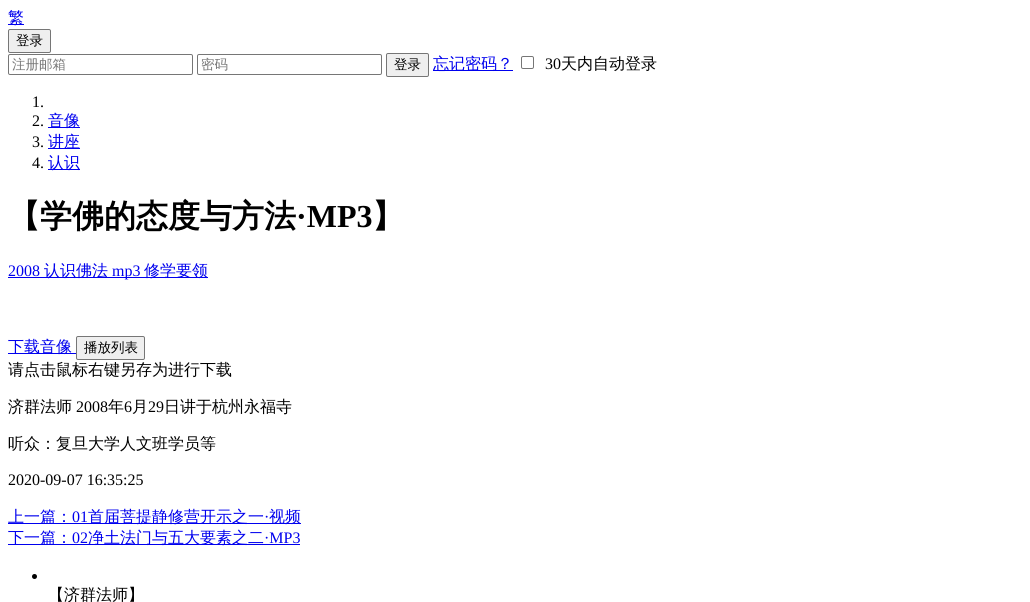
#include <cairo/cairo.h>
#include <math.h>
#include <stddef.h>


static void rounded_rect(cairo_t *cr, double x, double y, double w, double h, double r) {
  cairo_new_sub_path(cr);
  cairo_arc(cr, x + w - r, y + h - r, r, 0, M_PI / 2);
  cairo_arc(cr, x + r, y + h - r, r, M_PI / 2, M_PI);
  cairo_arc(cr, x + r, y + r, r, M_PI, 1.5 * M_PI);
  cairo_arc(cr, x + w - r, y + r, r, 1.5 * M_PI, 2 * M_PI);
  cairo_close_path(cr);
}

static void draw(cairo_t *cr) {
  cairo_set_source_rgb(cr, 1, 1, 1);
  cairo_paint(cr);
  cairo_set_source_rgb(cr, 0, 0, 238 / 255.0);
  cairo_rectangle(cr, 8, 24, 16, 1);
  cairo_fill(cr);
  cairo_set_source_rgb(cr, 239 / 255.0, 239 / 255.0, 239 / 255.0);
  rounded_rect(cr, 8.5, 29.5, 42, 23, 1.5);
  cairo_fill_preserve(cr);
  cairo_set_source_rgb(cr, 118 / 255.0, 118 / 255.0, 118 / 255.0);
  cairo_set_line_width(cr, 1);
  cairo_stroke(cr);
  rounded_rect(cr, 8.5, 54.5, 184, 20, 1.5);
  cairo_stroke(cr);
  rounded_rect(cr, 197.5, 54.5, 184, 20, 1.5);
  cairo_stroke(cr);
  cairo_set_source_rgb(cr, 239 / 255.0, 239 / 255.0, 239 / 255.0);
  rounded_rect(cr, 386.5, 53.5, 42, 23, 1.5);
  cairo_fill_preserve(cr);
  cairo_set_source_rgb(cr, 118 / 255.0, 118 / 255.0, 118 / 255.0);
  cairo_stroke(cr);
  cairo_set_source_rgb(cr, 0, 0, 238 / 255.0);
  cairo_rectangle(cr, 433, 70, 80, 1);
  cairo_fill(cr);
  rounded_rect(cr, 521.5, 56.5, 12, 12, 1.5);
  cairo_set_source_rgb(cr, 118 / 255.0, 118 / 255.0, 118 / 255.0);
  cairo_stroke(cr);
  cairo_set_source_rgb(cr, 0, 0, 238 / 255.0);
  cairo_rectangle(cr, 48, 127, 32, 1);
  cairo_fill(cr);
  cairo_rectangle(cr, 48, 148, 32, 1);
  cairo_fill(cr);
  cairo_rectangle(cr, 48, 169, 32, 1);
  cairo_fill(cr);
  cairo_rectangle(cr, 8, 277, 200, 1);
  cairo_fill(cr);
  cairo_rectangle(cr, 8, 353, 68, 1);
  cairo_fill(cr);
  cairo_set_source_rgb(cr, 239 / 255.0, 239 / 255.0, 239 / 255.0);
  rounded_rect(cr, 76.5, 336.5, 68, 23, 1.5);
  cairo_fill_preserve(cr);
  cairo_set_source_rgb(cr, 118 / 255.0, 118 / 255.0, 118 / 255.0);
  cairo_stroke(cr);
  cairo_set_source_rgb(cr, 0, 0, 238 / 255.0);
  cairo_rectangle(cr, 8, 523, 293, 1);
  cairo_fill(cr);
  cairo_rectangle(cr, 8, 544, 292, 1);
  cairo_fill(cr);
  cairo_set_source_rgb(cr, 0, 0, 0);
  cairo_arc(cr, 34.5, 576.5, 2.5, 0, 2 * M_PI);
  cairo_fill(cr);
  cairo_select_font_face(cr, "WenQuanYi Zen Hei Medium", CAIRO_FONT_SLANT_NORMAL, CAIRO_FONT_WEIGHT_NORMAL);
  cairo_set_font_size(cr, 16);
  cairo_set_source_rgb(cr, 0, 0, 238 / 255.0);
  cairo_move_to(cr, 8, 23);
  cairo_show_text(cr, "繁");
  cairo_set_font_size(cr, 13.5);
  cairo_set_source_rgb(cr, 0, 0, 0);
  cairo_move_to(cr, 16, 45);
  cairo_show_text(cr, "登录");
  cairo_set_source_rgb(cr, 117 / 255.0, 117 / 255.0, 117 / 255.0);
  cairo_move_to(cr, 12, 69);
  cairo_show_text(cr, "注册邮箱");
  cairo_move_to(cr, 201, 69);
  cairo_show_text(cr, "密码");
  cairo_set_source_rgb(cr, 0, 0, 0);
  cairo_move_to(cr, 394, 69);
  cairo_show_text(cr, "登录");
  cairo_set_font_size(cr, 16);
  cairo_set_source_rgb(cr, 0, 0, 238 / 255.0);
  cairo_move_to(cr, 433, 69);
  cairo_show_text(cr, "忘记密码？");
  cairo_select_font_face(cr, "Liberation Serif", CAIRO_FONT_SLANT_NORMAL, CAIRO_FONT_WEIGHT_NORMAL);
  cairo_set_source_rgb(cr, 0, 0, 0);
  cairo_move_to(cr, 545, 69);
  cairo_show_text(cr, "30");
  cairo_select_font_face(cr, "WenQuanYi Zen Hei Medium", CAIRO_FONT_SLANT_NORMAL, CAIRO_FONT_WEIGHT_NORMAL);
  cairo_move_to(cr, 561, 69);
  cairo_show_text(cr, "天内自动登录");
  cairo_select_font_face(cr, "Liberation Serif", CAIRO_FONT_SLANT_NORMAL, CAIRO_FONT_WEIGHT_NORMAL);
  cairo_move_to(cr, 32, 107);
  cairo_show_text(cr, "1.");
  cairo_move_to(cr, 32, 126);
  cairo_show_text(cr, "2.");
  cairo_select_font_face(cr, "WenQuanYi Zen Hei Medium", CAIRO_FONT_SLANT_NORMAL, CAIRO_FONT_WEIGHT_NORMAL);
  cairo_set_source_rgb(cr, 0, 0, 238 / 255.0);
  cairo_move_to(cr, 48, 126);
  cairo_show_text(cr, "音像");
  cairo_select_font_face(cr, "Liberation Serif", CAIRO_FONT_SLANT_NORMAL, CAIRO_FONT_WEIGHT_NORMAL);
  cairo_set_source_rgb(cr, 0, 0, 0);
  cairo_move_to(cr, 32, 147);
  cairo_show_text(cr, "3.");
  cairo_select_font_face(cr, "WenQuanYi Zen Hei Medium", CAIRO_FONT_SLANT_NORMAL, CAIRO_FONT_WEIGHT_NORMAL);
  cairo_set_source_rgb(cr, 0, 0, 238 / 255.0);
  cairo_move_to(cr, 48, 147);
  cairo_show_text(cr, "讲座");
  cairo_select_font_face(cr, "Liberation Serif", CAIRO_FONT_SLANT_NORMAL, CAIRO_FONT_WEIGHT_NORMAL);
  cairo_set_source_rgb(cr, 0, 0, 0);
  cairo_move_to(cr, 32, 168);
  cairo_show_text(cr, "4.");
  cairo_select_font_face(cr, "WenQuanYi Zen Hei Medium", CAIRO_FONT_SLANT_NORMAL, CAIRO_FONT_WEIGHT_NORMAL);
  cairo_set_source_rgb(cr, 0, 0, 238 / 255.0);
  cairo_move_to(cr, 48, 168);
  cairo_show_text(cr, "认识");
  cairo_select_font_face(cr, "WenQuanYi Zen Hei", CAIRO_FONT_SLANT_NORMAL, CAIRO_FONT_WEIGHT_BOLD);
  cairo_set_font_size(cr, 32);
  cairo_set_source_rgb(cr, 0, 0, 0);
  cairo_move_to(cr, 8, 227);
  cairo_show_text(cr, "【学佛的态度与方法");
  cairo_select_font_face(cr, "Liberation Serif", CAIRO_FONT_SLANT_NORMAL, CAIRO_FONT_WEIGHT_BOLD);
  cairo_move_to(cr, 296, 227);
  cairo_show_text(cr, "·MP3");
  cairo_select_font_face(cr, "WenQuanYi Zen Hei", CAIRO_FONT_SLANT_NORMAL, CAIRO_FONT_WEIGHT_BOLD);
  cairo_move_to(cr, 372, 227);
  cairo_show_text(cr, "】");
  cairo_select_font_face(cr, "Liberation Serif", CAIRO_FONT_SLANT_NORMAL, CAIRO_FONT_WEIGHT_NORMAL);
  cairo_set_font_size(cr, 16);
  cairo_set_source_rgb(cr, 0, 0, 238 / 255.0);
  cairo_move_to(cr, 8, 276);
  cairo_show_text(cr, "2008");
  cairo_select_font_face(cr, "WenQuanYi Zen Hei Medium", CAIRO_FONT_SLANT_NORMAL, CAIRO_FONT_WEIGHT_NORMAL);
  cairo_move_to(cr, 44, 276);
  cairo_show_text(cr, "认识佛法");
  cairo_select_font_face(cr, "Liberation Serif", CAIRO_FONT_SLANT_NORMAL, CAIRO_FONT_WEIGHT_NORMAL);
  cairo_move_to(cr, 112, 276);
  cairo_show_text(cr, "mp3");
  cairo_select_font_face(cr, "WenQuanYi Zen Hei Medium", CAIRO_FONT_SLANT_NORMAL, CAIRO_FONT_WEIGHT_NORMAL);
  cairo_move_to(cr, 144, 276);
  cairo_show_text(cr, "修学要领");
  cairo_move_to(cr, 8, 352);
  cairo_show_text(cr, "下载音像");
  cairo_set_font_size(cr, 13.5);
  cairo_set_source_rgb(cr, 0, 0, 0);
  cairo_move_to(cr, 84, 352);
  cairo_show_text(cr, "播放列表");
  cairo_set_font_size(cr, 16);
  cairo_move_to(cr, 8, 375);
  cairo_show_text(cr, "请点击鼠标右键另存为进行下载");
  cairo_move_to(cr, 8, 412);
  cairo_show_text(cr, "济群法师");
  cairo_select_font_face(cr, "Liberation Serif", CAIRO_FONT_SLANT_NORMAL, CAIRO_FONT_WEIGHT_NORMAL);
  cairo_move_to(cr, 76, 412);
  cairo_show_text(cr, "2008");
  cairo_select_font_face(cr, "WenQuanYi Zen Hei Medium", CAIRO_FONT_SLANT_NORMAL, CAIRO_FONT_WEIGHT_NORMAL);
  cairo_move_to(cr, 108, 412);
  cairo_show_text(cr, "年");
  cairo_select_font_face(cr, "Liberation Serif", CAIRO_FONT_SLANT_NORMAL, CAIRO_FONT_WEIGHT_NORMAL);
  cairo_move_to(cr, 124, 412);
  cairo_show_text(cr, "6");
  cairo_select_font_face(cr, "WenQuanYi Zen Hei Medium", CAIRO_FONT_SLANT_NORMAL, CAIRO_FONT_WEIGHT_NORMAL);
  cairo_move_to(cr, 132, 412);
  cairo_show_text(cr, "月");
  cairo_select_font_face(cr, "Liberation Serif", CAIRO_FONT_SLANT_NORMAL, CAIRO_FONT_WEIGHT_NORMAL);
  cairo_move_to(cr, 148, 412);
  cairo_show_text(cr, "29");
  cairo_select_font_face(cr, "WenQuanYi Zen Hei Medium", CAIRO_FONT_SLANT_NORMAL, CAIRO_FONT_WEIGHT_NORMAL);
  cairo_move_to(cr, 164, 412);
  cairo_show_text(cr, "日讲于杭州永福寺");
  cairo_move_to(cr, 8, 449);
  cairo_show_text(cr, "听众：复旦大学人文班学员等");
  cairo_select_font_face(cr, "Liberation Serif", CAIRO_FONT_SLANT_NORMAL, CAIRO_FONT_WEIGHT_NORMAL);
  cairo_move_to(cr, 8, 485);
  cairo_show_text(cr, "2020-09-07 16:35:25");
  cairo_select_font_face(cr, "WenQuanYi Zen Hei Medium", CAIRO_FONT_SLANT_NORMAL, CAIRO_FONT_WEIGHT_NORMAL);
  cairo_set_source_rgb(cr, 0, 0, 238 / 255.0);
  cairo_move_to(cr, 8, 522);
  cairo_show_text(cr, "上一篇：");
  cairo_select_font_face(cr, "Liberation Serif", CAIRO_FONT_SLANT_NORMAL, CAIRO_FONT_WEIGHT_NORMAL);
  cairo_move_to(cr, 72, 522);
  cairo_show_text(cr, "01");
  cairo_select_font_face(cr, "WenQuanYi Zen Hei Medium", CAIRO_FONT_SLANT_NORMAL, CAIRO_FONT_WEIGHT_NORMAL);
  cairo_move_to(cr, 88, 522);
  cairo_show_text(cr, "首届菩提静修营开示之一");
  cairo_select_font_face(cr, "Liberation Serif", CAIRO_FONT_SLANT_NORMAL, CAIRO_FONT_WEIGHT_NORMAL);
  cairo_move_to(cr, 264, 522);
  cairo_show_text(cr, "·");
  cairo_select_font_face(cr, "WenQuanYi Zen Hei Medium", CAIRO_FONT_SLANT_NORMAL, CAIRO_FONT_WEIGHT_NORMAL);
  cairo_move_to(cr, 269, 522);
  cairo_show_text(cr, "视频");
  cairo_move_to(cr, 8, 543);
  cairo_show_text(cr, "下一篇：");
  cairo_select_font_face(cr, "Liberation Serif", CAIRO_FONT_SLANT_NORMAL, CAIRO_FONT_WEIGHT_NORMAL);
  cairo_move_to(cr, 72, 543);
  cairo_show_text(cr, "02");
  cairo_select_font_face(cr, "WenQuanYi Zen Hei Medium", CAIRO_FONT_SLANT_NORMAL, CAIRO_FONT_WEIGHT_NORMAL);
  cairo_move_to(cr, 88, 543);
  cairo_show_text(cr, "净土法门与五大要素之二");
  cairo_select_font_face(cr, "Liberation Serif", CAIRO_FONT_SLANT_NORMAL, CAIRO_FONT_WEIGHT_NORMAL);
  cairo_move_to(cr, 264, 543);
  cairo_show_text(cr, "·MP3");
  cairo_select_font_face(cr, "WenQuanYi Zen Hei Medium", CAIRO_FONT_SLANT_NORMAL, CAIRO_FONT_WEIGHT_NORMAL);
  cairo_set_source_rgb(cr, 0, 0, 0);
  cairo_move_to(cr, 48, 600);
  cairo_show_text(cr, "【济群法师】");
}

int main(void) {
  cairo_surface_t *surface = cairo_image_surface_create(CAIRO_FORMAT_RGB24, 1030, 602);
  cairo_t *cr = cairo_create(surface);
  cairo_font_options_t *options = cairo_font_options_create();
  cairo_font_options_set_hint_metrics(options, CAIRO_HINT_METRICS_OFF);
  cairo_font_options_set_hint_style(options, CAIRO_HINT_STYLE_NONE);
  cairo_set_font_options(cr, options);
  cairo_set_miter_limit(cr, 4);
  draw(cr);
  cairo_surface_write_to_png(surface, "out.png");
  cairo_font_options_destroy(options);
  cairo_destroy(cr);
  cairo_surface_destroy(surface);
  return 0;
}
